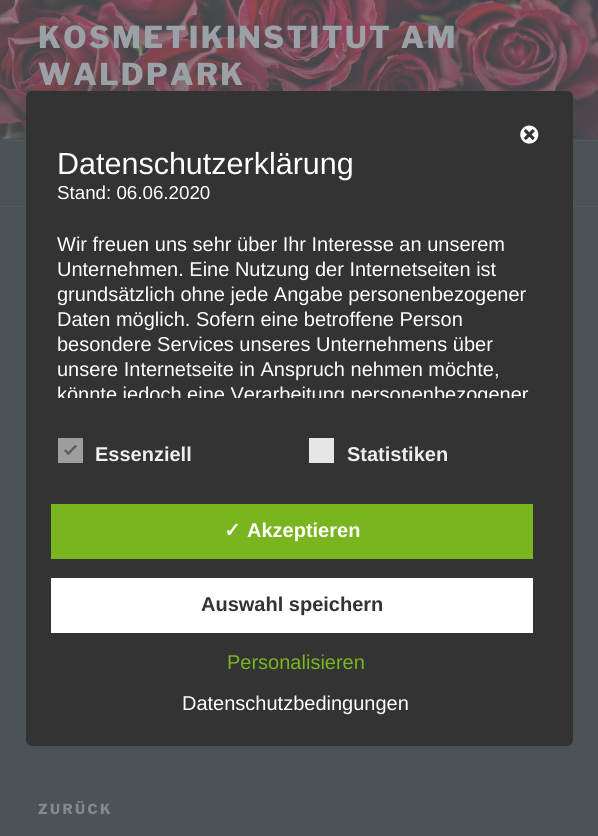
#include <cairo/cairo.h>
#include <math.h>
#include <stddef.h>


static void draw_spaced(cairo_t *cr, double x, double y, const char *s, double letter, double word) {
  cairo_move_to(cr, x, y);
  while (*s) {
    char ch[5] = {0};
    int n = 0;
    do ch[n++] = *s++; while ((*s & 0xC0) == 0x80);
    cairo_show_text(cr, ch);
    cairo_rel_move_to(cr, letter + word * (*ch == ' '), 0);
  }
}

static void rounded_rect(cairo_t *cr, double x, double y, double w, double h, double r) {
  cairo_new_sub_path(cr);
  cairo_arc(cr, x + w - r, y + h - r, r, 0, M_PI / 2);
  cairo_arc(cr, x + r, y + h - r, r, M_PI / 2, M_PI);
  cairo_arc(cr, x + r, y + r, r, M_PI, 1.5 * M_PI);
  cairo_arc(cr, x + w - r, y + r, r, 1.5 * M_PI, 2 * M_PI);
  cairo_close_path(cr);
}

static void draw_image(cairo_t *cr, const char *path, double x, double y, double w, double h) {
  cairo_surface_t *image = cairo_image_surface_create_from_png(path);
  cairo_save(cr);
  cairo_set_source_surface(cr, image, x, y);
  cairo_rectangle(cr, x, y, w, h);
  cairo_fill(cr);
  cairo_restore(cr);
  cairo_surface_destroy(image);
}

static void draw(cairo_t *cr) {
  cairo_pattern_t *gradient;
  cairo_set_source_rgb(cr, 75 / 255.0, 83 / 255.0, 87 / 255.0);
  cairo_paint(cr);
  draw_image(cr, "images/1.png", 0, 0, 598, 139);
  gradient = cairo_pattern_create_linear(299, 0, 299, 140);
  cairo_pattern_add_color_stop_rgba(gradient, 0, 63 / 255.0, 70 / 255.0, 75 / 255.0, 0);
  cairo_pattern_add_color_stop_rgba(gradient, 0.75, 63 / 255.0, 70 / 255.0, 75 / 255.0, 0.3);
  cairo_pattern_add_color_stop_rgba(gradient, 1, 63 / 255.0, 70 / 255.0, 75 / 255.0, 0.3);
  cairo_set_source(cr, gradient);
  cairo_pattern_destroy(gradient);
  cairo_rectangle(cr, 0, 10, 598, 130);
  cairo_fill(cr);
  cairo_set_source_rgb(cr, 81 / 255.0, 89 / 255.0, 93 / 255.0);
  cairo_rectangle(cr, 0, 140, 598, 1);
  cairo_fill(cr);
  cairo_rectangle(cr, 0, 206, 598, 1);
  cairo_fill(cr);
  cairo_set_source_rgb(cr, 51 / 255.0, 51 / 255.0, 51 / 255.0);
  rounded_rect(cr, 26, 91, 547, 655, 6);
  cairo_fill(cr);
  draw_image(cr, "images/2.png", 520, 125, 19, 19);
  cairo_set_source_rgb(cr, 158 / 255.0, 158 / 255.0, 158 / 255.0);
  cairo_rectangle(cr, 58, 438, 25, 25);
  cairo_fill(cr);
  cairo_set_source_rgb(cr, 94 / 255.0, 94 / 255.0, 94 / 255.0);
  cairo_new_path(cr);
  cairo_move_to(cr, 75.5, 444.5);
  cairo_line_to(cr, 77, 446.5);
  cairo_line_to(cr, 68.5, 455);
  cairo_line_to(cr, 66.5, 453.5);
  cairo_close_path(cr);
  cairo_fill(cr);
  cairo_new_path(cr);
  cairo_move_to(cr, 65.5, 449);
  cairo_line_to(cr, 70, 453.5);
  cairo_line_to(cr, 68.5, 455);
  cairo_line_to(cr, 64, 451);
  cairo_close_path(cr);
  cairo_fill(cr);
  cairo_set_source_rgb(cr, 230 / 255.0, 230 / 255.0, 230 / 255.0);
  cairo_rectangle(cr, 309, 438, 25, 25);
  cairo_fill(cr);
  cairo_set_source_rgb(cr, 121 / 255.0, 181 / 255.0, 31 / 255.0);
  cairo_rectangle(cr, 51, 504, 482, 55);
  cairo_fill(cr);
  cairo_set_source_rgb(cr, 1, 1, 1);
  cairo_rectangle(cr, 51, 578, 482, 55);
  cairo_fill(cr);
  cairo_select_font_face(cr, "Libre Franklin Thin", CAIRO_FONT_SLANT_NORMAL, CAIRO_FONT_WEIGHT_NORMAL);
  cairo_set_font_size(cr, 30);
  cairo_set_source_rgb(cr, 155 / 255.0, 162 / 255.0, 167 / 255.0);
  draw_spaced(cr, 38, 48, "KOSMETIKINSTITUT AM", 2.4, 0);
  draw_spaced(cr, 38, 85, "WALDPARK", 2.4, 0);
  cairo_set_font_size(cr, 13.75);
  cairo_set_source_rgb(cr, 130 / 255.0, 138 / 255.0, 142 / 255.0);
  draw_spaced(cr, 38, 814, "ZURÜCK", 2.5, 0);
  cairo_select_font_face(cr, "Liberation Sans", CAIRO_FONT_SLANT_NORMAL, CAIRO_FONT_WEIGHT_NORMAL);
  cairo_set_font_size(cr, 30.5);
  cairo_set_source_rgb(cr, 1, 1, 1);
  cairo_move_to(cr, 57, 174);
  cairo_show_text(cr, "Datenschutzerklärung");
  cairo_set_font_size(cr, 18.75);
  cairo_move_to(cr, 57, 199);
  cairo_show_text(cr, "Stand: 06.06.2020");
  cairo_set_font_size(cr, 20);
  cairo_move_to(cr, 57, 251);
  cairo_show_text(cr, "Wir freuen uns sehr über Ihr Interesse an unserem");
  cairo_move_to(cr, 57, 276);
  cairo_show_text(cr, "Unternehmen. Eine Nutzung der Internetseiten ist");
  cairo_move_to(cr, 57, 301);
  cairo_show_text(cr, "grundsätzlich ohne jede Angabe personenbezogener");
  cairo_move_to(cr, 57, 326);
  cairo_show_text(cr, "Daten möglich. Sofern eine betroffene Person");
  cairo_move_to(cr, 57, 351);
  cairo_show_text(cr, "besondere Services unseres Unternehmens über");
  cairo_move_to(cr, 57, 376);
  cairo_show_text(cr, "unsere Internetseite in Anspruch nehmen möchte,");
  cairo_save(cr);
  cairo_rectangle(cr, 58, 148, 496, 250);
  cairo_clip(cr);
  cairo_move_to(cr, 57, 401);
  cairo_show_text(cr, "könnte jedoch eine Verarbeitung personenbezogener");
  cairo_restore(cr);
  cairo_select_font_face(cr, "Liberation Sans", CAIRO_FONT_SLANT_NORMAL, CAIRO_FONT_WEIGHT_BOLD);
  cairo_set_source_rgb(cr, 238 / 255.0, 238 / 255.0, 238 / 255.0);
  cairo_move_to(cr, 95, 461);
  cairo_show_text(cr, "Essenziell");
  cairo_move_to(cr, 347, 461);
  cairo_show_text(cr, "Statistiken");
  cairo_select_font_face(cr, "DejaVu Sans", CAIRO_FONT_SLANT_NORMAL, CAIRO_FONT_WEIGHT_BOLD);
  cairo_set_source_rgb(cr, 1, 1, 1);
  cairo_move_to(cr, 224, 537);
  cairo_show_text(cr, "✓");
  cairo_select_font_face(cr, "Liberation Sans", CAIRO_FONT_SLANT_NORMAL, CAIRO_FONT_WEIGHT_BOLD);
  cairo_move_to(cr, 247, 537);
  cairo_show_text(cr, "Akzeptieren");
  cairo_set_source_rgb(cr, 51 / 255.0, 51 / 255.0, 51 / 255.0);
  cairo_move_to(cr, 201, 611);
  cairo_show_text(cr, "Auswahl speichern");
  cairo_select_font_face(cr, "Liberation Sans", CAIRO_FONT_SLANT_NORMAL, CAIRO_FONT_WEIGHT_NORMAL);
  cairo_set_source_rgb(cr, 121 / 255.0, 181 / 255.0, 31 / 255.0);
  cairo_move_to(cr, 227, 669);
  cairo_show_text(cr, "Personalisieren");
  cairo_set_source_rgb(cr, 1, 1, 1);
  cairo_move_to(cr, 182, 710);
  cairo_show_text(cr, "Datenschutzbedingungen");
}

int main(void) {
  cairo_surface_t *surface = cairo_image_surface_create(CAIRO_FORMAT_RGB24, 598, 836);
  cairo_t *cr = cairo_create(surface);
  cairo_font_options_t *options = cairo_font_options_create();
  cairo_font_options_set_hint_metrics(options, CAIRO_HINT_METRICS_OFF);
  cairo_font_options_set_hint_style(options, CAIRO_HINT_STYLE_NONE);
  cairo_set_font_options(cr, options);
  cairo_set_miter_limit(cr, 4);
  draw(cr);
  cairo_surface_write_to_png(surface, "out.png");
  cairo_font_options_destroy(options);
  cairo_destroy(cr);
  cairo_surface_destroy(surface);
  return 0;
}
